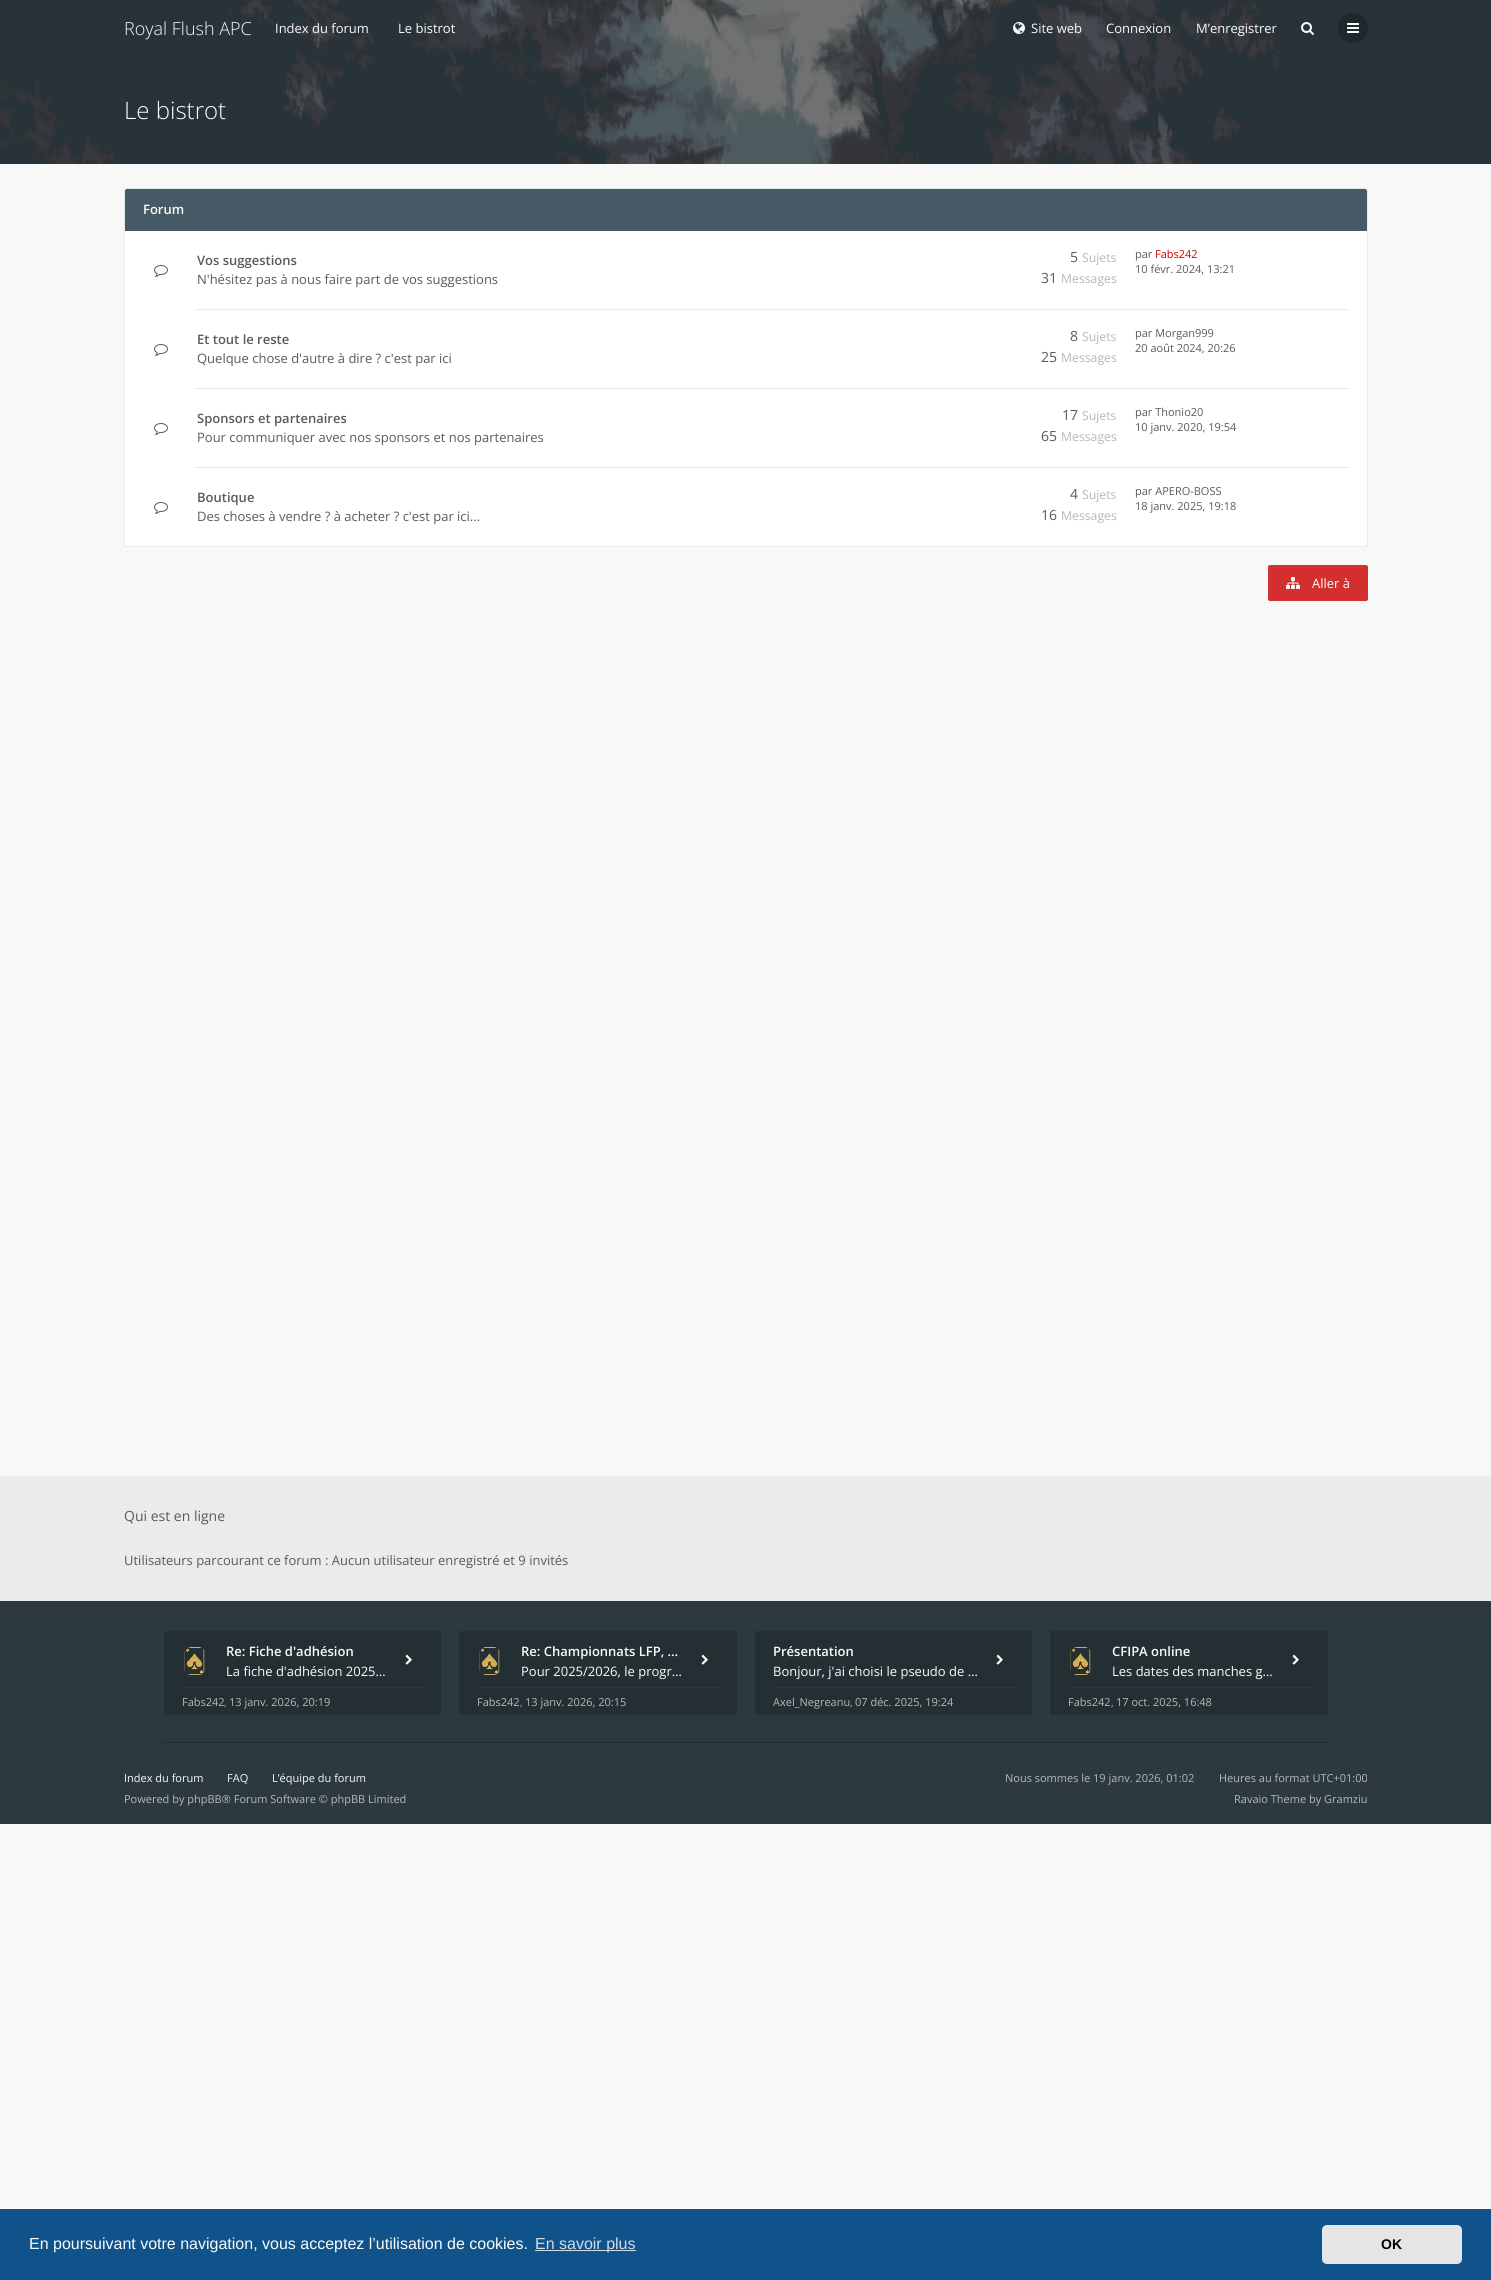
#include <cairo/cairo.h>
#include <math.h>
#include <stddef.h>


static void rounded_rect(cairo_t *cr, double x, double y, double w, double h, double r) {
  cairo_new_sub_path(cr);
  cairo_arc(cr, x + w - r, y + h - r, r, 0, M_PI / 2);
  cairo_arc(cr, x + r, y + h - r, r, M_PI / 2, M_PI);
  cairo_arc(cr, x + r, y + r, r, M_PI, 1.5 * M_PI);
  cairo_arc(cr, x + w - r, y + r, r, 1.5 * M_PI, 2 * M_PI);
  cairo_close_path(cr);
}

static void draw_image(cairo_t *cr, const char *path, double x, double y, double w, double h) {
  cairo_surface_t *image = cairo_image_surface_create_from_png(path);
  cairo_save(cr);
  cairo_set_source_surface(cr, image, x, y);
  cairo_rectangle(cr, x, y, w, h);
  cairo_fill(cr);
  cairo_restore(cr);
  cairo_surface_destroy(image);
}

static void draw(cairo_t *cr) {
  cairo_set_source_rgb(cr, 248 / 255.0, 248 / 255.0, 248 / 255.0);
  cairo_paint(cr);
  draw_image(cr, "images/4.png", 0, 0, 1491, 164);
  draw_image(cr, "images/1.png", 1013, 22, 12, 12);
  draw_image(cr, "images/2.png", 1301, 22, 13, 13);
  cairo_set_source_rgb(cr, 30 / 255.0, 39 / 255.0, 43 / 255.0);
  cairo_arc(cr, 1353, 28, 15, 0, 2 * M_PI);
  cairo_fill(cr);
  draw_image(cr, "images/3.png", 1347, 23, 12, 10);
  rounded_rect(cr, 124.5, 188.5, 1243, 358, 1.5);
  cairo_set_source_rgb(cr, 234 / 255.0, 234 / 255.0, 234 / 255.0);
  cairo_set_line_width(cr, 1);
  cairo_stroke(cr);
  cairo_set_source_rgb(cr, 69 / 255.0, 90 / 255.0, 100 / 255.0);
  cairo_new_path(cr);
  cairo_move_to(cr, 127, 189);
  cairo_line_to(cr, 1365, 189);
  cairo_curve_to(cr, 1366, 189, 1367, 190, 1367, 191);
  cairo_line_to(cr, 1367, 231);
  cairo_line_to(cr, 125, 231);
  cairo_line_to(cr, 125, 191);
  cairo_curve_to(cr, 125, 190, 126, 189, 127, 189);
  cairo_close_path(cr);
  cairo_fill(cr);
  cairo_set_source_rgb(cr, 1, 1, 1);
  cairo_rectangle(cr, 125, 231, 1242, 237);
  cairo_fill(cr);
  draw_image(cr, "images/5.png", 154, 265, 14, 12);
  cairo_set_source_rgb(cr, 234 / 255.0, 234 / 255.0, 234 / 255.0);
  cairo_rectangle(cr, 195, 309, 1154, 1);
  cairo_fill(cr);
  draw_image(cr, "images/5.png", 154, 344, 14, 12);
  cairo_rectangle(cr, 195, 388, 1154, 1);
  cairo_fill(cr);
  draw_image(cr, "images/5.png", 154, 423, 14, 12);
  cairo_rectangle(cr, 195, 467, 1154, 1);
  cairo_fill(cr);
  cairo_set_source_rgb(cr, 1, 1, 1);
  cairo_new_path(cr);
  cairo_move_to(cr, 125, 468);
  cairo_line_to(cr, 1367, 468);
  cairo_line_to(cr, 1367, 544);
  cairo_curve_to(cr, 1367, 545, 1366, 546, 1365, 546);
  cairo_line_to(cr, 127, 546);
  cairo_curve_to(cr, 126, 546, 125, 545, 125, 544);
  cairo_close_path(cr);
  cairo_fill(cr);
  draw_image(cr, "images/5.png", 154, 502, 14, 12);
  cairo_set_source_rgb(cr, 211 / 255.0, 47 / 255.0, 47 / 255.0);
  rounded_rect(cr, 1268, 565, 100, 36, 2);
  cairo_fill(cr);
  draw_image(cr, "images/6.png", 1286, 577, 14, 12);
  cairo_set_source_rgb(cr, 235 / 255.0, 235 / 255.0, 235 / 255.0);
  cairo_rectangle(cr, 0, 1476, 1491, 125);
  cairo_fill(cr);
  cairo_set_source_rgb(cr, 44 / 255.0, 57 / 255.0, 63 / 255.0);
  cairo_rectangle(cr, 0, 1601, 1491, 223);
  cairo_fill(cr);
  cairo_set_source_rgb(cr, 36 / 255.0, 47 / 255.0, 52 / 255.0);
  rounded_rect(cr, 164, 1631, 277, 84, 2);
  cairo_fill(cr);
  draw_image(cr, "images/7.png", 184, 1647, 21, 28);
  cairo_set_source_rgb(cr, 44 / 255.0, 57 / 255.0, 63 / 255.0);
  cairo_rectangle(cr, 182, 1687, 241, 1);
  cairo_fill(cr);
  draw_image(cr, "images/8.png", 405, 1654, 7, 11);
  cairo_set_source_rgb(cr, 36 / 255.0, 47 / 255.0, 52 / 255.0);
  rounded_rect(cr, 459, 1631, 278, 84, 2);
  cairo_fill(cr);
  draw_image(cr, "images/7.png", 479, 1647, 21, 28);
  cairo_set_source_rgb(cr, 44 / 255.0, 57 / 255.0, 63 / 255.0);
  cairo_rectangle(cr, 477, 1687, 242, 1);
  cairo_fill(cr);
  draw_image(cr, "images/8.png", 701, 1654, 7, 11);
  cairo_set_source_rgb(cr, 36 / 255.0, 47 / 255.0, 52 / 255.0);
  rounded_rect(cr, 755, 1631, 277, 84, 2);
  cairo_fill(cr);
  cairo_set_source_rgb(cr, 44 / 255.0, 57 / 255.0, 63 / 255.0);
  cairo_rectangle(cr, 773, 1687, 241, 1);
  cairo_fill(cr);
  draw_image(cr, "images/8.png", 996, 1654, 7, 11);
  cairo_set_source_rgb(cr, 36 / 255.0, 47 / 255.0, 52 / 255.0);
  rounded_rect(cr, 1050, 1631, 278, 84, 2);
  cairo_fill(cr);
  draw_image(cr, "images/9.png", 1070, 1647, 21, 28);
  cairo_set_source_rgb(cr, 44 / 255.0, 57 / 255.0, 63 / 255.0);
  cairo_rectangle(cr, 1068, 1687, 242, 1);
  cairo_fill(cr);
  draw_image(cr, "images/8.png", 1292, 1654, 7, 11);
  cairo_set_source_rgb(cr, 33 / 255.0, 43 / 255.0, 48 / 255.0);
  cairo_rectangle(cr, 164, 1742, 1164, 1);
  cairo_fill(cr);
  cairo_set_source_rgb(cr, 15 / 255.0, 83 / 255.0, 138 / 255.0);
  cairo_rectangle(cr, 0, 2209, 1491, 71);
  cairo_fill(cr);
  cairo_set_source_rgb(cr, 207 / 255.0, 221 / 255.0, 232 / 255.0);
  cairo_rectangle(cr, 535, 2250, 101, 1);
  cairo_fill(cr);
  cairo_set_source_rgb(cr, 229 / 255.0, 229 / 255.0, 229 / 255.0);
  rounded_rect(cr, 1322, 2225, 140, 39, 5);
  cairo_fill(cr);
  cairo_select_font_face(cr, "Open Sans Light", CAIRO_FONT_SLANT_NORMAL, CAIRO_FONT_WEIGHT_NORMAL);
  cairo_set_font_size(cr, 18);
  cairo_set_source_rgb(cr, 250 / 255.0, 250 / 255.0, 250 / 255.0);
  cairo_move_to(cr, 124, 35);
  cairo_show_text(cr, "Royal Flush APC");
  cairo_select_font_face(cr, "Open Sans", CAIRO_FONT_SLANT_NORMAL, CAIRO_FONT_WEIGHT_NORMAL);
  cairo_set_font_size(cr, 13);
  cairo_move_to(cr, 275, 33);
  cairo_show_text(cr, "Index du forum");
  cairo_move_to(cr, 398, 33);
  cairo_show_text(cr, "Le bistrot");
  cairo_move_to(cr, 1031, 33);
  cairo_show_text(cr, "Site web");
  cairo_move_to(cr, 1106, 33);
  cairo_show_text(cr, "Connexion");
  cairo_move_to(cr, 1196, 33);
  cairo_show_text(cr, "M’enregistrer");
  cairo_select_font_face(cr, "Open Sans Light", CAIRO_FONT_SLANT_NORMAL, CAIRO_FONT_WEIGHT_NORMAL);
  cairo_set_font_size(cr, 24);
  cairo_move_to(cr, 124, 119);
  cairo_show_text(cr, "Le bistrot");
  cairo_select_font_face(cr, "Open Sans SemiBold", CAIRO_FONT_SLANT_NORMAL, CAIRO_FONT_WEIGHT_NORMAL);
  cairo_set_font_size(cr, 13);
  cairo_move_to(cr, 143, 214);
  cairo_show_text(cr, "Forum");
  cairo_set_source_rgb(cr, 90 / 255.0, 90 / 255.0, 90 / 255.0);
  cairo_move_to(cr, 197, 265);
  cairo_show_text(cr, "Vos suggestions");
  cairo_select_font_face(cr, "Open Sans", CAIRO_FONT_SLANT_NORMAL, CAIRO_FONT_WEIGHT_NORMAL);
  cairo_move_to(cr, 197, 284);
  cairo_show_text(cr, "N'hésitez pas à nous faire part de vos suggestions");
  cairo_set_font_size(cr, 14);
  cairo_move_to(cr, 1070, 262);
  cairo_show_text(cr, "5");
  cairo_set_font_size(cr, 12.25);
  cairo_set_source_rgb(cr, 183 / 255.0, 183 / 255.0, 183 / 255.0);
  cairo_move_to(cr, 1082, 262);
  cairo_show_text(cr, "Sujets");
  cairo_set_font_size(cr, 14);
  cairo_set_source_rgb(cr, 90 / 255.0, 90 / 255.0, 90 / 255.0);
  cairo_move_to(cr, 1041, 283);
  cairo_show_text(cr, "31");
  cairo_set_font_size(cr, 12.25);
  cairo_set_source_rgb(cr, 183 / 255.0, 183 / 255.0, 183 / 255.0);
  cairo_move_to(cr, 1061, 283);
  cairo_show_text(cr, "Messages");
  cairo_set_font_size(cr, 11);
  cairo_set_source_rgb(cr, 90 / 255.0, 90 / 255.0, 90 / 255.0);
  cairo_move_to(cr, 1135, 258);
  cairo_show_text(cr, "par");
  cairo_set_source_rgb(cr, 204 / 255.0, 0, 0);
  cairo_move_to(cr, 1155, 258);
  cairo_show_text(cr, "Fabs242");
  cairo_set_source_rgb(cr, 90 / 255.0, 90 / 255.0, 90 / 255.0);
  cairo_move_to(cr, 1135, 273);
  cairo_show_text(cr, "10 févr. 2024, 13:21");
  cairo_select_font_face(cr, "Open Sans SemiBold", CAIRO_FONT_SLANT_NORMAL, CAIRO_FONT_WEIGHT_NORMAL);
  cairo_set_font_size(cr, 13);
  cairo_move_to(cr, 197, 344);
  cairo_show_text(cr, "Et tout le reste");
  cairo_select_font_face(cr, "Open Sans", CAIRO_FONT_SLANT_NORMAL, CAIRO_FONT_WEIGHT_NORMAL);
  cairo_move_to(cr, 197, 363);
  cairo_show_text(cr, "Quelque chose d'autre à dire ? c'est par ici");
  cairo_set_font_size(cr, 14);
  cairo_move_to(cr, 1070, 341);
  cairo_show_text(cr, "8");
  cairo_set_font_size(cr, 12.25);
  cairo_set_source_rgb(cr, 183 / 255.0, 183 / 255.0, 183 / 255.0);
  cairo_move_to(cr, 1082, 341);
  cairo_show_text(cr, "Sujets");
  cairo_set_font_size(cr, 14);
  cairo_set_source_rgb(cr, 90 / 255.0, 90 / 255.0, 90 / 255.0);
  cairo_move_to(cr, 1041, 362);
  cairo_show_text(cr, "25");
  cairo_set_font_size(cr, 12.25);
  cairo_set_source_rgb(cr, 183 / 255.0, 183 / 255.0, 183 / 255.0);
  cairo_move_to(cr, 1061, 362);
  cairo_show_text(cr, "Messages");
  cairo_set_font_size(cr, 11);
  cairo_set_source_rgb(cr, 90 / 255.0, 90 / 255.0, 90 / 255.0);
  cairo_move_to(cr, 1135, 337);
  cairo_show_text(cr, "par Morgan999");
  cairo_move_to(cr, 1135, 352);
  cairo_show_text(cr, "20 août 2024, 20:26");
  cairo_select_font_face(cr, "Open Sans SemiBold", CAIRO_FONT_SLANT_NORMAL, CAIRO_FONT_WEIGHT_NORMAL);
  cairo_set_font_size(cr, 13);
  cairo_move_to(cr, 197, 423);
  cairo_show_text(cr, "Sponsors et partenaires");
  cairo_select_font_face(cr, "Open Sans", CAIRO_FONT_SLANT_NORMAL, CAIRO_FONT_WEIGHT_NORMAL);
  cairo_move_to(cr, 197, 442);
  cairo_show_text(cr, "Pour communiquer avec nos sponsors et nos partenaires");
  cairo_set_font_size(cr, 14);
  cairo_move_to(cr, 1062, 420);
  cairo_show_text(cr, "17");
  cairo_set_font_size(cr, 12.25);
  cairo_set_source_rgb(cr, 183 / 255.0, 183 / 255.0, 183 / 255.0);
  cairo_move_to(cr, 1082, 420);
  cairo_show_text(cr, "Sujets");
  cairo_set_font_size(cr, 14);
  cairo_set_source_rgb(cr, 90 / 255.0, 90 / 255.0, 90 / 255.0);
  cairo_move_to(cr, 1041, 441);
  cairo_show_text(cr, "65");
  cairo_set_font_size(cr, 12.25);
  cairo_set_source_rgb(cr, 183 / 255.0, 183 / 255.0, 183 / 255.0);
  cairo_move_to(cr, 1061, 441);
  cairo_show_text(cr, "Messages");
  cairo_set_font_size(cr, 11);
  cairo_set_source_rgb(cr, 90 / 255.0, 90 / 255.0, 90 / 255.0);
  cairo_move_to(cr, 1135, 416);
  cairo_show_text(cr, "par Thonio20");
  cairo_move_to(cr, 1135, 431);
  cairo_show_text(cr, "10 janv. 2020, 19:54");
  cairo_select_font_face(cr, "Open Sans SemiBold", CAIRO_FONT_SLANT_NORMAL, CAIRO_FONT_WEIGHT_NORMAL);
  cairo_set_font_size(cr, 13);
  cairo_move_to(cr, 197, 502);
  cairo_show_text(cr, "Boutique");
  cairo_select_font_face(cr, "Open Sans", CAIRO_FONT_SLANT_NORMAL, CAIRO_FONT_WEIGHT_NORMAL);
  cairo_move_to(cr, 197, 521);
  cairo_show_text(cr, "Des choses à vendre ? à acheter ? c'est par ici...");
  cairo_set_font_size(cr, 14);
  cairo_move_to(cr, 1070, 499);
  cairo_show_text(cr, "4");
  cairo_set_font_size(cr, 12.25);
  cairo_set_source_rgb(cr, 183 / 255.0, 183 / 255.0, 183 / 255.0);
  cairo_move_to(cr, 1082, 499);
  cairo_show_text(cr, "Sujets");
  cairo_set_font_size(cr, 14);
  cairo_set_source_rgb(cr, 90 / 255.0, 90 / 255.0, 90 / 255.0);
  cairo_move_to(cr, 1041, 520);
  cairo_show_text(cr, "16");
  cairo_set_font_size(cr, 12.25);
  cairo_set_source_rgb(cr, 183 / 255.0, 183 / 255.0, 183 / 255.0);
  cairo_move_to(cr, 1061, 520);
  cairo_show_text(cr, "Messages");
  cairo_set_font_size(cr, 11);
  cairo_set_source_rgb(cr, 90 / 255.0, 90 / 255.0, 90 / 255.0);
  cairo_move_to(cr, 1135, 495);
  cairo_show_text(cr, "par APERO-BOSS");
  cairo_move_to(cr, 1135, 510);
  cairo_show_text(cr, "18 janv. 2025, 19:18");
  cairo_set_font_size(cr, 13);
  cairo_set_source_rgb(cr, 250 / 255.0, 250 / 255.0, 250 / 255.0);
  cairo_move_to(cr, 1312, 588);
  cairo_show_text(cr, "Aller à");
  cairo_set_font_size(cr, 14);
  cairo_set_source_rgb(cr, 90 / 255.0, 90 / 255.0, 90 / 255.0);
  cairo_move_to(cr, 124, 1521);
  cairo_show_text(cr, "Qui est en ligne");
  cairo_set_font_size(cr, 13);
  cairo_move_to(cr, 124, 1565);
  cairo_show_text(cr, "Utilisateurs parcourant ce forum : Aucun utilisateur enregistré et 9 invités");
  cairo_select_font_face(cr, "Open Sans SemiBold", CAIRO_FONT_SLANT_NORMAL, CAIRO_FONT_WEIGHT_NORMAL);
  cairo_set_source_rgb(cr, 250 / 255.0, 250 / 255.0, 250 / 255.0);
  cairo_move_to(cr, 226, 1656);
  cairo_show_text(cr, "Re: Fiche d'adhésion");
  cairo_select_font_face(cr, "Open Sans", CAIRO_FONT_SLANT_NORMAL, CAIRO_FONT_WEIGHT_NORMAL);
  cairo_move_to(cr, 226, 1676);
  cairo_show_text(cr, "La fiche d'adhésion 2025…");
  cairo_set_font_size(cr, 11);
  cairo_set_source_rgb(cr, 183 / 255.0, 183 / 255.0, 183 / 255.0);
  cairo_move_to(cr, 182, 1706);
  cairo_show_text(cr, "Fabs242");
  cairo_set_font_size(cr, 10);
  cairo_move_to(cr, 224, 1706);
  cairo_show_text(cr, ",");
  cairo_set_font_size(cr, 11);
  cairo_move_to(cr, 229, 1706);
  cairo_show_text(cr, "13 janv. 2026, 20:19");
  cairo_select_font_face(cr, "Open Sans SemiBold", CAIRO_FONT_SLANT_NORMAL, CAIRO_FONT_WEIGHT_NORMAL);
  cairo_set_font_size(cr, 13);
  cairo_set_source_rgb(cr, 250 / 255.0, 250 / 255.0, 250 / 255.0);
  cairo_move_to(cr, 521, 1656);
  cairo_show_text(cr, "Re: Championnats LFP, …");
  cairo_select_font_face(cr, "Open Sans", CAIRO_FONT_SLANT_NORMAL, CAIRO_FONT_WEIGHT_NORMAL);
  cairo_move_to(cr, 521, 1676);
  cairo_show_text(cr, "Pour 2025/2026, le progr…");
  cairo_set_font_size(cr, 11);
  cairo_set_source_rgb(cr, 183 / 255.0, 183 / 255.0, 183 / 255.0);
  cairo_move_to(cr, 477, 1706);
  cairo_show_text(cr, "Fabs242");
  cairo_set_font_size(cr, 10);
  cairo_move_to(cr, 520, 1706);
  cairo_show_text(cr, ",");
  cairo_set_font_size(cr, 11);
  cairo_move_to(cr, 525, 1706);
  cairo_show_text(cr, "13 janv. 2026, 20:15");
  cairo_select_font_face(cr, "Open Sans SemiBold", CAIRO_FONT_SLANT_NORMAL, CAIRO_FONT_WEIGHT_NORMAL);
  cairo_set_font_size(cr, 13);
  cairo_set_source_rgb(cr, 250 / 255.0, 250 / 255.0, 250 / 255.0);
  cairo_move_to(cr, 773, 1656);
  cairo_show_text(cr, "Présentation");
  cairo_select_font_face(cr, "Open Sans", CAIRO_FONT_SLANT_NORMAL, CAIRO_FONT_WEIGHT_NORMAL);
  cairo_move_to(cr, 773, 1676);
  cairo_show_text(cr, "Bonjour, j'ai choisi le pseudo de …");
  cairo_set_font_size(cr, 11);
  cairo_set_source_rgb(cr, 183 / 255.0, 183 / 255.0, 183 / 255.0);
  cairo_move_to(cr, 773, 1706);
  cairo_show_text(cr, "Axel_Negreanu");
  cairo_set_font_size(cr, 10);
  cairo_move_to(cr, 850, 1706);
  cairo_show_text(cr, ",");
  cairo_set_font_size(cr, 11);
  cairo_move_to(cr, 855, 1706);
  cairo_show_text(cr, "07 déc. 2025, 19:24");
  cairo_select_font_face(cr, "Open Sans SemiBold", CAIRO_FONT_SLANT_NORMAL, CAIRO_FONT_WEIGHT_NORMAL);
  cairo_set_font_size(cr, 13);
  cairo_set_source_rgb(cr, 250 / 255.0, 250 / 255.0, 250 / 255.0);
  cairo_move_to(cr, 1112, 1656);
  cairo_show_text(cr, "CFIPA online");
  cairo_select_font_face(cr, "Open Sans", CAIRO_FONT_SLANT_NORMAL, CAIRO_FONT_WEIGHT_NORMAL);
  cairo_move_to(cr, 1112, 1676);
  cairo_show_text(cr, "Les dates des manches g…");
  cairo_set_font_size(cr, 11);
  cairo_set_source_rgb(cr, 183 / 255.0, 183 / 255.0, 183 / 255.0);
  cairo_move_to(cr, 1068, 1706);
  cairo_show_text(cr, "Fabs242");
  cairo_set_font_size(cr, 10);
  cairo_move_to(cr, 1111, 1706);
  cairo_show_text(cr, ",");
  cairo_set_font_size(cr, 11);
  cairo_move_to(cr, 1116, 1706);
  cairo_show_text(cr, "17 oct. 2025, 16:48");
  cairo_set_source_rgb(cr, 250 / 255.0, 250 / 255.0, 250 / 255.0);
  cairo_move_to(cr, 124, 1782);
  cairo_show_text(cr, "Index du forum");
  cairo_move_to(cr, 227, 1782);
  cairo_show_text(cr, "FAQ");
  cairo_move_to(cr, 272, 1782);
  cairo_show_text(cr, "L’équipe du forum");
  cairo_set_source_rgb(cr, 183 / 255.0, 183 / 255.0, 183 / 255.0);
  cairo_move_to(cr, 1005, 1782);
  cairo_show_text(cr, "Nous sommes le 19 janv. 2026, 01:02");
  cairo_move_to(cr, 1219, 1782);
  cairo_show_text(cr, "Heures au format UTC+01:00");
  cairo_move_to(cr, 124, 1803);
  cairo_show_text(cr, "Powered by phpBB® Forum Software © phpBB Limited");
  cairo_move_to(cr, 1234, 1803);
  cairo_show_text(cr, "Ravaio Theme by Gramziu");
  cairo_select_font_face(cr, "Liberation Sans", CAIRO_FONT_SLANT_NORMAL, CAIRO_FONT_WEIGHT_NORMAL);
  cairo_set_font_size(cr, 16);
  cairo_set_source_rgb(cr, 250 / 255.0, 250 / 255.0, 250 / 255.0);
  cairo_move_to(cr, 29, 2249);
  cairo_show_text(cr, "En poursuivant votre navigation, vous acceptez l’utilisation de cookies.");
  cairo_set_source_rgb(cr, 207 / 255.0, 221 / 255.0, 232 / 255.0);
  cairo_move_to(cr, 535, 2249);
  cairo_show_text(cr, "En savoir plus");
  cairo_select_font_face(cr, "Liberation Sans", CAIRO_FONT_SLANT_NORMAL, CAIRO_FONT_WEIGHT_BOLD);
  cairo_set_font_size(cr, 14);
  cairo_set_source_rgb(cr, 0, 0, 0);
  cairo_move_to(cr, 1381, 2249);
  cairo_show_text(cr, "OK");
}

int main(void) {
  cairo_surface_t *surface = cairo_image_surface_create(CAIRO_FORMAT_RGB24, 1491, 2280);
  cairo_t *cr = cairo_create(surface);
  cairo_font_options_t *options = cairo_font_options_create();
  cairo_font_options_set_hint_metrics(options, CAIRO_HINT_METRICS_OFF);
  cairo_font_options_set_hint_style(options, CAIRO_HINT_STYLE_NONE);
  cairo_set_font_options(cr, options);
  cairo_set_miter_limit(cr, 4);
  draw(cr);
  cairo_surface_write_to_png(surface, "out.png");
  cairo_font_options_destroy(options);
  cairo_destroy(cr);
  cairo_surface_destroy(surface);
  return 0;
}
